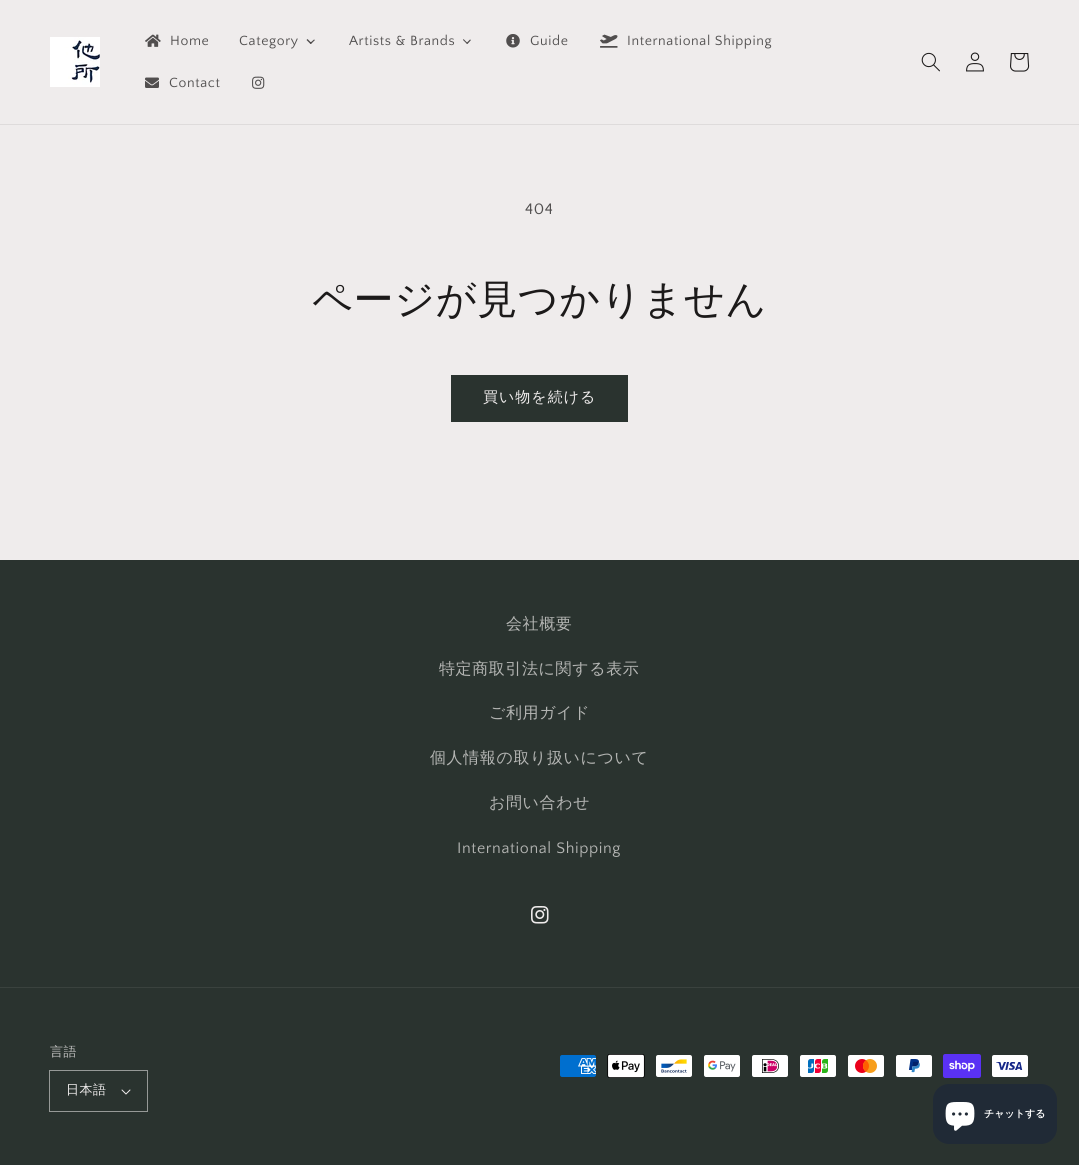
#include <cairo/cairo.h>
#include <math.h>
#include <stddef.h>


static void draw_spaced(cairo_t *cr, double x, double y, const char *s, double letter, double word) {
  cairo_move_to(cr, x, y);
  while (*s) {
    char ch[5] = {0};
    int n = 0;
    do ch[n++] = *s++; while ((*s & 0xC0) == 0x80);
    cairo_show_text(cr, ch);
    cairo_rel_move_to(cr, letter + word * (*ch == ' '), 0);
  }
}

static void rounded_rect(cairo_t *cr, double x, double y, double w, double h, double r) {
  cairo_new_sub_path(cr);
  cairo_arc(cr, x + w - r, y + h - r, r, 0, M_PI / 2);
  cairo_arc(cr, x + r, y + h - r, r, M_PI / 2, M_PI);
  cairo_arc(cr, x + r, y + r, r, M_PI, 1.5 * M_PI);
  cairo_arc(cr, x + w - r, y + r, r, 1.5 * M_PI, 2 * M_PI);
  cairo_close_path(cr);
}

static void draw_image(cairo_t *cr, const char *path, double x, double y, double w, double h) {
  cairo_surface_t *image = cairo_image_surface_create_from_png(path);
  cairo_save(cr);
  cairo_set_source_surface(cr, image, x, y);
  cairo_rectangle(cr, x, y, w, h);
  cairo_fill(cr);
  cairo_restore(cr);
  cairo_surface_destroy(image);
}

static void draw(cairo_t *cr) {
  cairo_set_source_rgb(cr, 239 / 255.0, 236 / 255.0, 236 / 255.0);
  cairo_paint(cr);
  cairo_set_source_rgb(cr, 222 / 255.0, 219 / 255.0, 219 / 255.0);
  cairo_rectangle(cr, 0, 124, 1079, 1);
  cairo_fill(cr);
  draw_image(cr, "images/1.png", 50, 37, 50, 50);
  draw_image(cr, "images/2.png", 145, 34, 16, 13);
  cairo_set_source_rgb(cr, 81 / 255.0, 79 / 255.0, 79 / 255.0);
  cairo_new_path(cr);
  cairo_move_to(cr, 314, 39.5);
  cairo_line_to(cr, 315, 40);
  cairo_line_to(cr, 311, 44);
  cairo_line_to(cr, 310, 43);
  cairo_close_path(cr);
  cairo_fill(cr);
  cairo_set_source_rgba(cr, 28 / 255.0, 26 / 255.0, 26 / 255.0, 0.75);
  cairo_new_path(cr);
  cairo_move_to(cr, 307.5, 39);
  cairo_line_to(cr, 311.5, 43);
  cairo_line_to(cr, 310.5, 44);
  cairo_line_to(cr, 306.5, 40);
  cairo_close_path(cr);
  cairo_fill(cr);
  cairo_set_source_rgb(cr, 81 / 255.0, 79 / 255.0, 79 / 255.0);
  cairo_new_path(cr);
  cairo_move_to(cr, 470, 39.5);
  cairo_line_to(cr, 471, 40);
  cairo_line_to(cr, 467.5, 44);
  cairo_line_to(cr, 466.5, 43);
  cairo_close_path(cr);
  cairo_fill(cr);
  cairo_set_source_rgba(cr, 28 / 255.0, 26 / 255.0, 26 / 255.0, 0.75);
  cairo_new_path(cr);
  cairo_move_to(cr, 463.5, 39);
  cairo_line_to(cr, 467.5, 43);
  cairo_line_to(cr, 467, 44);
  cairo_line_to(cr, 463, 40);
  cairo_close_path(cr);
  cairo_fill(cr);
  draw_image(cr, "images/3.png", 506, 34, 14, 14);
  draw_image(cr, "images/4.png", 600, 34, 18, 14);
  draw_image(cr, "images/5.png", 145, 77, 14, 11);
  draw_image(cr, "images/6.png", 252, 76, 13, 13);
  draw_image(cr, "images/7.png", 921, 52, 19, 20);
  draw_image(cr, "images/8.png", 966, 52, 18, 20);
  draw_image(cr, "images/9.png", 1010, 53, 20, 19);
  cairo_rectangle(cr, 451.5, 375.5, 176, 46);
  cairo_set_source_rgb(cr, 42 / 255.0, 51 / 255.0, 47 / 255.0);
  cairo_set_line_width(cr, 1);
  cairo_stroke(cr);
  cairo_rectangle(cr, 452, 376, 175, 45);
  cairo_fill(cr);
  cairo_rectangle(cr, 0, 560, 1079, 605);
  cairo_fill(cr);
  draw_image(cr, "images/10.png", 531, 906, 18, 18);
  cairo_set_source_rgb(cr, 58 / 255.0, 66 / 255.0, 62 / 255.0);
  cairo_rectangle(cr, 0, 987, 1079, 1);
  cairo_fill(cr);
  cairo_rectangle(cr, 49.5, 1070.5, 98, 41);
  cairo_set_source_rgb(cr, 150 / 255.0, 153 / 255.0, 151 / 255.0);
  cairo_stroke(cr);
  draw_image(cr, "images/11.png", 121, 1089, 10, 6);
  draw_image(cr, "images/12.png", 560, 1055, 36, 22);
  draw_image(cr, "images/13.png", 607, 1054, 38, 24);
  draw_image(cr, "images/14.png", 656, 1055, 36, 22);
  draw_image(cr, "images/15.png", 704, 1055, 36, 22);
  draw_image(cr, "images/16.png", 752, 1055, 36, 22);
  draw_image(cr, "images/17.png", 800, 1055, 36, 22);
  draw_image(cr, "images/18.png", 848, 1055, 36, 22);
  draw_image(cr, "images/19.png", 896, 1055, 36, 22);
  draw_image(cr, "images/20.png", 943, 1054, 38, 24);
  draw_image(cr, "images/21.png", 992, 1055, 36, 22);
  cairo_set_source_rgb(cr, 32 / 255.0, 42 / 255.0, 54 / 255.0);
  rounded_rect(cr, 933, 1084, 124, 60, 16);
  cairo_fill(cr);
  draw_image(cr, "images/22.png", 945, 1102, 30, 29);
  cairo_select_font_face(cr, "Quattrocento Sans", CAIRO_FONT_SLANT_NORMAL, CAIRO_FONT_WEIGHT_NORMAL);
  cairo_set_font_size(cr, 14);
  cairo_set_source_rgb(cr, 81 / 255.0, 79 / 255.0, 79 / 255.0);
  draw_spaced(cr, 170, 45, "Home", 0.6, 0);
  draw_spaced(cr, 239, 45, "Category", 0.6, 0);
  draw_spaced(cr, 349, 45, "Artists & Brands", 0.6, 0);
  draw_spaced(cr, 530, 45, "Guide", 0.6, 0);
  draw_spaced(cr, 627, 45, "International Shipping", 0.6, 0);
  draw_spaced(cr, 169, 87, "Contact", 0.6, 0);
  cairo_set_font_size(cr, 16);
  draw_spaced(cr, 525, 214, "404", 0.6, 0);
  cairo_select_font_face(cr, "WenQuanYi Zen Hei Medium", CAIRO_FONT_SLANT_NORMAL, CAIRO_FONT_WEIGHT_NORMAL);
  cairo_set_font_size(cr, 40);
  cairo_set_source_rgb(cr, 28 / 255.0, 26 / 255.0, 26 / 255.0);
  draw_spaced(cr, 312, 313, "ページが見つかりません", 0.6, 0);
  cairo_set_font_size(cr, 15);
  cairo_set_source_rgb(cr, 239 / 255.0, 236 / 255.0, 236 / 255.0);
  draw_spaced(cr, 483, 402, "買い物を続ける", 1, 0);
  cairo_set_font_size(cr, 16);
  cairo_set_source_rgb(cr, 180 / 255.0, 181 / 255.0, 179 / 255.0);
  draw_spaced(cr, 506, 629, "会社概要", 0.6, 0);
  draw_spaced(cr, 439, 674, "特定商取引法に関する表示", 0.6, 0);
  draw_spaced(cr, 489, 718, "ご利用ガイド", 0.6, 0);
  draw_spaced(cr, 430, 763, "個人情報の取り扱いについて", 0.6, 0);
  draw_spaced(cr, 489, 808, "お問い合わせ", 0.6, 0);
  cairo_select_font_face(cr, "Quattrocento Sans", CAIRO_FONT_SLANT_NORMAL, CAIRO_FONT_WEIGHT_NORMAL);
  draw_spaced(cr, 457, 853, "International Shipping", 0.6, 0);
  cairo_select_font_face(cr, "WenQuanYi Zen Hei Medium", CAIRO_FONT_SLANT_NORMAL, CAIRO_FONT_WEIGHT_NORMAL);
  cairo_set_font_size(cr, 13);
  cairo_set_source_rgb(cr, 190 / 255.0, 190 / 255.0, 189 / 255.0);
  draw_spaced(cr, 50, 1056, "言語", 0.5, 0);
  cairo_set_source_rgb(cr, 239 / 255.0, 236 / 255.0, 236 / 255.0);
  draw_spaced(cr, 66, 1094, "日本語", 0.5, 0);
  cairo_select_font_face(cr, "WenQuanYi Zen Hei", CAIRO_FONT_SLANT_NORMAL, CAIRO_FONT_WEIGHT_BOLD);
  cairo_set_font_size(cr, 10);
  cairo_set_source_rgb(cr, 1, 1, 1);
  cairo_move_to(cr, 984, 1117);
  cairo_show_text(cr, "チャットする");
}

int main(void) {
  cairo_surface_t *surface = cairo_image_surface_create(CAIRO_FORMAT_RGB24, 1079, 1165);
  cairo_t *cr = cairo_create(surface);
  cairo_font_options_t *options = cairo_font_options_create();
  cairo_font_options_set_hint_metrics(options, CAIRO_HINT_METRICS_OFF);
  cairo_font_options_set_hint_style(options, CAIRO_HINT_STYLE_NONE);
  cairo_set_font_options(cr, options);
  cairo_set_miter_limit(cr, 4);
  draw(cr);
  cairo_surface_write_to_png(surface, "out.png");
  cairo_font_options_destroy(options);
  cairo_destroy(cr);
  cairo_surface_destroy(surface);
  return 0;
}
